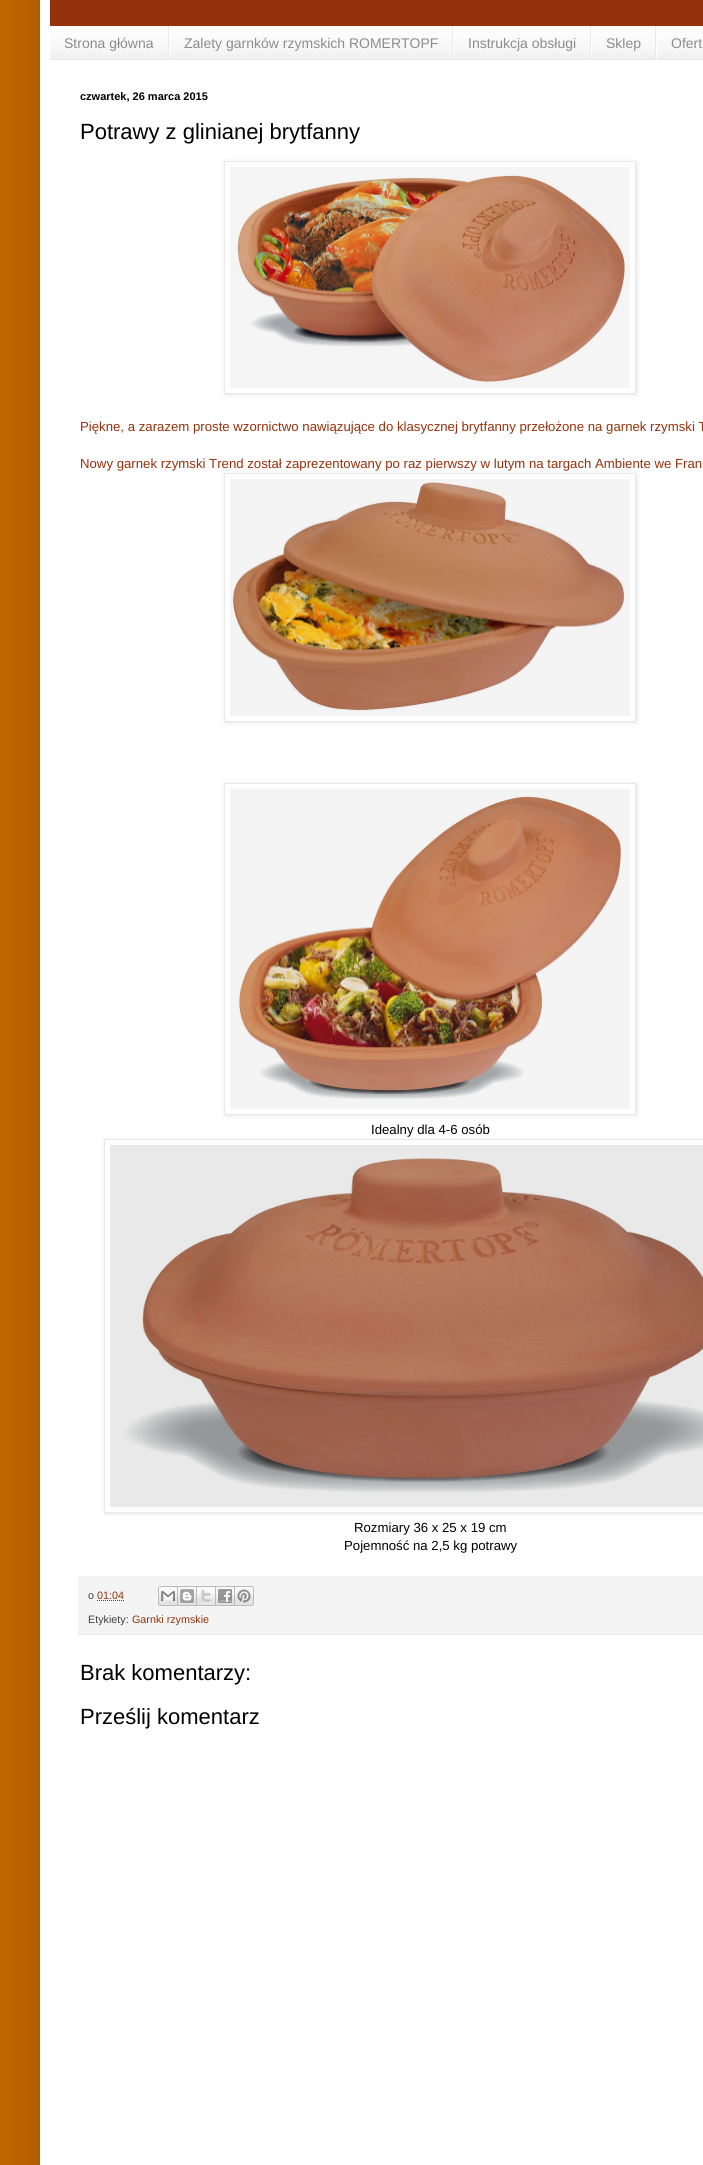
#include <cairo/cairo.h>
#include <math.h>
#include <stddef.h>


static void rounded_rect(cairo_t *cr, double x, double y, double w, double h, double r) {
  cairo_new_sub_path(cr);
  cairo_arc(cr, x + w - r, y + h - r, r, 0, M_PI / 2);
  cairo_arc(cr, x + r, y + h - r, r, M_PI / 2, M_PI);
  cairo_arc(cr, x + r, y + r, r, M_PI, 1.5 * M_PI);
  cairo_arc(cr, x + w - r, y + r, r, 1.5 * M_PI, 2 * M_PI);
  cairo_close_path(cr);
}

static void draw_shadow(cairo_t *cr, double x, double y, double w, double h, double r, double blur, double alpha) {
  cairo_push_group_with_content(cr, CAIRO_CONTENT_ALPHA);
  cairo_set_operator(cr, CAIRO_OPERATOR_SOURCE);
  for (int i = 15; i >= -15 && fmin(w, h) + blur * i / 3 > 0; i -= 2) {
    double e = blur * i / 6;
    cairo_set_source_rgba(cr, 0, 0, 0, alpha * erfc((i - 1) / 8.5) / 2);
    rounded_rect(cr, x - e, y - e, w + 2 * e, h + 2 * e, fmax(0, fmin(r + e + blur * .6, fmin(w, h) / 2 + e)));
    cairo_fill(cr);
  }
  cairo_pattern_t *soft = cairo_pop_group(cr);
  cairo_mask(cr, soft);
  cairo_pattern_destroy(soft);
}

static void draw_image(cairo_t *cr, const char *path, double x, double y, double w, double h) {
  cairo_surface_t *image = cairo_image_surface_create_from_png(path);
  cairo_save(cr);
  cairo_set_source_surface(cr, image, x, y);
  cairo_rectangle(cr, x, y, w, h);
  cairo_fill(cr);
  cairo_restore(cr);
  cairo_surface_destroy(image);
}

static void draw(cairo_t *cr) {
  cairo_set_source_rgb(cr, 190 / 255.0, 101 / 255.0, 0);
  cairo_paint(cr);
  cairo_set_source_rgb(cr, 0, 0, 0);
  draw_shadow(cr, 40, -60, 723, 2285, 0, 20, 0.15);
  cairo_set_source_rgb(cr, 1, 1, 1);
  cairo_rectangle(cr, 40, 0, 663, 2165);
  cairo_fill(cr);
  cairo_set_source_rgb(cr, 149 / 255.0, 49 / 255.0, 12 / 255.0);
  cairo_rectangle(cr, 50, 0, 653, 26);
  cairo_fill(cr);
  cairo_set_source_rgb(cr, 240 / 255.0, 240 / 255.0, 240 / 255.0);
  cairo_rectangle(cr, 50, 27, 653, 32);
  cairo_fill(cr);
  draw_image(cr, "images/1.png", 50, 26, 653, 29);
  cairo_set_source_rgb(cr, 233 / 255.0, 233 / 255.0, 233 / 255.0);
  cairo_rectangle(cr, 50, 59, 653, 1);
  cairo_fill(cr);
  cairo_rectangle(cr, 168, 26, 1, 33);
  cairo_fill(cr);
  cairo_rectangle(cr, 452, 26, 1, 33);
  cairo_fill(cr);
  cairo_set_source_rgb(cr, 1, 1, 1);
  cairo_rectangle(cr, 169, 26, 1, 33);
  cairo_fill(cr);
  cairo_set_source_rgb(cr, 233 / 255.0, 233 / 255.0, 233 / 255.0);
  cairo_rectangle(cr, 590, 26, 1, 33);
  cairo_fill(cr);
  cairo_set_source_rgb(cr, 1, 1, 1);
  cairo_rectangle(cr, 453, 26, 1, 33);
  cairo_fill(cr);
  cairo_set_source_rgb(cr, 233 / 255.0, 233 / 255.0, 233 / 255.0);
  cairo_rectangle(cr, 655, 26, 1, 33);
  cairo_fill(cr);
  cairo_set_source_rgb(cr, 1, 1, 1);
  cairo_rectangle(cr, 591, 26, 1, 33);
  cairo_fill(cr);
  cairo_rectangle(cr, 656, 26, 1, 33);
  cairo_fill(cr);
  cairo_save(cr);
  cairo_set_fill_rule(cr, CAIRO_FILL_RULE_EVEN_ODD);
  cairo_new_path(cr);
  cairo_move_to(cr, 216, 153);
  cairo_line_to(cr, 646, 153);
  cairo_line_to(cr, 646, 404);
  cairo_line_to(cr, 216, 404);
  cairo_close_path(cr);
  cairo_move_to(cr, 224, 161);
  cairo_line_to(cr, 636, 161);
  cairo_line_to(cr, 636, 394);
  cairo_line_to(cr, 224, 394);
  cairo_close_path(cr);
  cairo_clip(cr);
  cairo_set_source_rgb(cr, 0, 0, 0);
  draw_shadow(cr, 225, 162, 412, 233, 0, 2.5, 0.1);
  cairo_restore(cr);
  cairo_rectangle(cr, 224.5, 161.5, 411, 232);
  cairo_set_source_rgb(cr, 233 / 255.0, 233 / 255.0, 233 / 255.0);
  cairo_set_line_width(cr, 1);
  cairo_stroke(cr);
  draw_image(cr, "images/2.png", 230, 167, 400, 221);
  cairo_save(cr);
  cairo_set_fill_rule(cr, CAIRO_FILL_RULE_EVEN_ODD);
  cairo_new_path(cr);
  cairo_move_to(cr, 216, 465);
  cairo_line_to(cr, 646, 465);
  cairo_line_to(cr, 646, 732);
  cairo_line_to(cr, 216, 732);
  cairo_close_path(cr);
  cairo_move_to(cr, 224, 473);
  cairo_line_to(cr, 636, 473);
  cairo_line_to(cr, 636, 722);
  cairo_line_to(cr, 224, 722);
  cairo_close_path(cr);
  cairo_clip(cr);
  cairo_set_source_rgb(cr, 0, 0, 0);
  draw_shadow(cr, 225, 474, 412, 249, 0, 2.5, 0.1);
  cairo_restore(cr);
  cairo_rectangle(cr, 224.5, 473.5, 411, 248);
  cairo_stroke(cr);
  draw_image(cr, "images/3.png", 230, 479, 400, 237);
  cairo_save(cr);
  cairo_set_fill_rule(cr, CAIRO_FILL_RULE_EVEN_ODD);
  cairo_new_path(cr);
  cairo_move_to(cr, 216, 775);
  cairo_line_to(cr, 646, 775);
  cairo_line_to(cr, 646, 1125);
  cairo_line_to(cr, 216, 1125);
  cairo_close_path(cr);
  cairo_move_to(cr, 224, 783);
  cairo_line_to(cr, 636, 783);
  cairo_line_to(cr, 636, 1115);
  cairo_line_to(cr, 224, 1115);
  cairo_close_path(cr);
  cairo_clip(cr);
  cairo_set_source_rgb(cr, 0, 0, 0);
  draw_shadow(cr, 225, 784, 412, 332, 0, 2.5, 0.1);
  cairo_restore(cr);
  cairo_rectangle(cr, 224.5, 783.5, 411, 331);
  cairo_stroke(cr);
  draw_image(cr, "images/4.png", 230, 789, 400, 320);
  cairo_save(cr);
  cairo_set_fill_rule(cr, CAIRO_FILL_RULE_EVEN_ODD);
  cairo_new_path(cr);
  cairo_move_to(cr, 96, 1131);
  cairo_line_to(cr, 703, 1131);
  cairo_line_to(cr, 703, 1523);
  cairo_line_to(cr, 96, 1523);
  cairo_close_path(cr);
  cairo_move_to(cr, 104, 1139);
  cairo_line_to(cr, 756, 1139);
  cairo_line_to(cr, 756, 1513);
  cairo_line_to(cr, 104, 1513);
  cairo_close_path(cr);
  cairo_clip(cr);
  cairo_set_source_rgb(cr, 0, 0, 0);
  draw_shadow(cr, 105, 1140, 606, 374, 0, 2.5, 0.1);
  cairo_restore(cr);
  cairo_rectangle(cr, 104.5, 1139.5, 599, 373);
  cairo_stroke(cr);
  draw_image(cr, "images/5.png", 110, 1145, 593, 362);
  cairo_set_source_rgb(cr, 244 / 255.0, 244 / 255.0, 244 / 255.0);
  cairo_rectangle(cr, 78, 1576, 625, 58);
  cairo_fill(cr);
  cairo_set_source_rgb(cr, 233 / 255.0, 233 / 255.0, 233 / 255.0);
  cairo_rectangle(cr, 78, 1634, 625, 1);
  cairo_fill(cr);
  cairo_new_path(cr);
  cairo_move_to(cr, 97, 1600.5);
  cairo_line_to(cr, 124, 1600.5);
  cairo_set_source_rgb(cr, 149 / 255.0, 49 / 255.0, 12 / 255.0);
  cairo_set_dash(cr, (double[]){1, 1}, 2, 0);
  cairo_stroke(cr);
  draw_image(cr, "images/6.png", 158, 1586, 20, 20);
  draw_image(cr, "images/7.png", 178, 1586, 19, 20);
  draw_image(cr, "images/8.png", 197, 1586, 19, 20);
  draw_image(cr, "images/9.png", 216, 1586, 19, 20);
  draw_image(cr, "images/10.png", 235, 1586, 19, 20);
  cairo_select_font_face(cr, "Liberation Sans", CAIRO_FONT_SLANT_NORMAL, CAIRO_FONT_WEIGHT_NORMAL);
  cairo_set_font_size(cr, 14);
  cairo_set_source_rgb(cr, 140 / 255.0, 140 / 255.0, 140 / 255.0);
  cairo_move_to(cr, 64, 48);
  cairo_show_text(cr, "Strona główna");
  cairo_move_to(cr, 184, 48);
  cairo_show_text(cr, "Zalety garnków rzymskich ROMERTOPF");
  cairo_move_to(cr, 468, 48);
  cairo_show_text(cr, "Instrukcja obsługi");
  cairo_move_to(cr, 606, 48);
  cairo_show_text(cr, "Sklep");
  cairo_move_to(cr, 671, 48);
  cairo_show_text(cr, "Ofert");
  cairo_select_font_face(cr, "Liberation Sans", CAIRO_FONT_SLANT_NORMAL, CAIRO_FONT_WEIGHT_BOLD);
  cairo_set_font_size(cr, 11);
  cairo_set_source_rgb(cr, 0, 0, 0);
  cairo_move_to(cr, 80, 100);
  cairo_show_text(cr, "czwartek, 26 marca 2015");
  cairo_select_font_face(cr, "Liberation Sans", CAIRO_FONT_SLANT_NORMAL, CAIRO_FONT_WEIGHT_NORMAL);
  cairo_set_font_size(cr, 22);
  cairo_move_to(cr, 80, 139);
  cairo_show_text(cr, "Potrawy z glinianej brytfanny");
  cairo_set_font_size(cr, 13.2);
  cairo_set_source_rgb(cr, 149 / 255.0, 49 / 255.0, 12 / 255.0);
  cairo_move_to(cr, 80, 431);
  cairo_show_text(cr, "Piękne, a zarazem proste wzornictwo nawiązujące do klasycznej brytfanny przełożone na garnek rzymski T");
  cairo_move_to(cr, 80, 468);
  cairo_show_text(cr, "Nowy garnek rzymski Trend został zaprezentowany po raz pierwszy w lutym na targach Ambiente we Fran");
  cairo_set_source_rgb(cr, 0, 0, 0);
  cairo_move_to(cr, 371, 1134);
  cairo_show_text(cr, "Idealny dla 4-6 osób");
  cairo_move_to(cr, 354, 1532);
  cairo_show_text(cr, "Rozmiary 36 x 25 x 19 cm");
  cairo_move_to(cr, 344, 1550);
  cairo_show_text(cr, "Pojemność na 2,5 kg potrawy");
  cairo_set_font_size(cr, 10.75);
  cairo_set_source_rgb(cr, 62 / 255.0, 62 / 255.0, 62 / 255.0);
  cairo_move_to(cr, 88, 1599);
  cairo_show_text(cr, "o");
  cairo_set_source_rgb(cr, 149 / 255.0, 49 / 255.0, 12 / 255.0);
  cairo_move_to(cr, 97, 1599);
  cairo_show_text(cr, "01:04");
  cairo_set_source_rgb(cr, 62 / 255.0, 62 / 255.0, 62 / 255.0);
  cairo_move_to(cr, 88, 1623);
  cairo_show_text(cr, "Etykiety:");
  cairo_set_source_rgb(cr, 149 / 255.0, 49 / 255.0, 12 / 255.0);
  cairo_move_to(cr, 132, 1623);
  cairo_show_text(cr, "Garnki rzymskie");
  cairo_set_font_size(cr, 22);
  cairo_set_source_rgb(cr, 0, 0, 0);
  cairo_move_to(cr, 80, 1680);
  cairo_show_text(cr, "Brak komentarzy:");
  cairo_move_to(cr, 80, 1724);
  cairo_show_text(cr, "Prześlij komentarz");
}

int main(void) {
  cairo_surface_t *surface = cairo_image_surface_create(CAIRO_FORMAT_RGB24, 703, 2165);
  cairo_t *cr = cairo_create(surface);
  cairo_font_options_t *options = cairo_font_options_create();
  cairo_font_options_set_hint_metrics(options, CAIRO_HINT_METRICS_OFF);
  cairo_font_options_set_hint_style(options, CAIRO_HINT_STYLE_NONE);
  cairo_set_font_options(cr, options);
  cairo_set_miter_limit(cr, 4);
  draw(cr);
  cairo_surface_write_to_png(surface, "out.png");
  cairo_font_options_destroy(options);
  cairo_destroy(cr);
  cairo_surface_destroy(surface);
  return 0;
}
